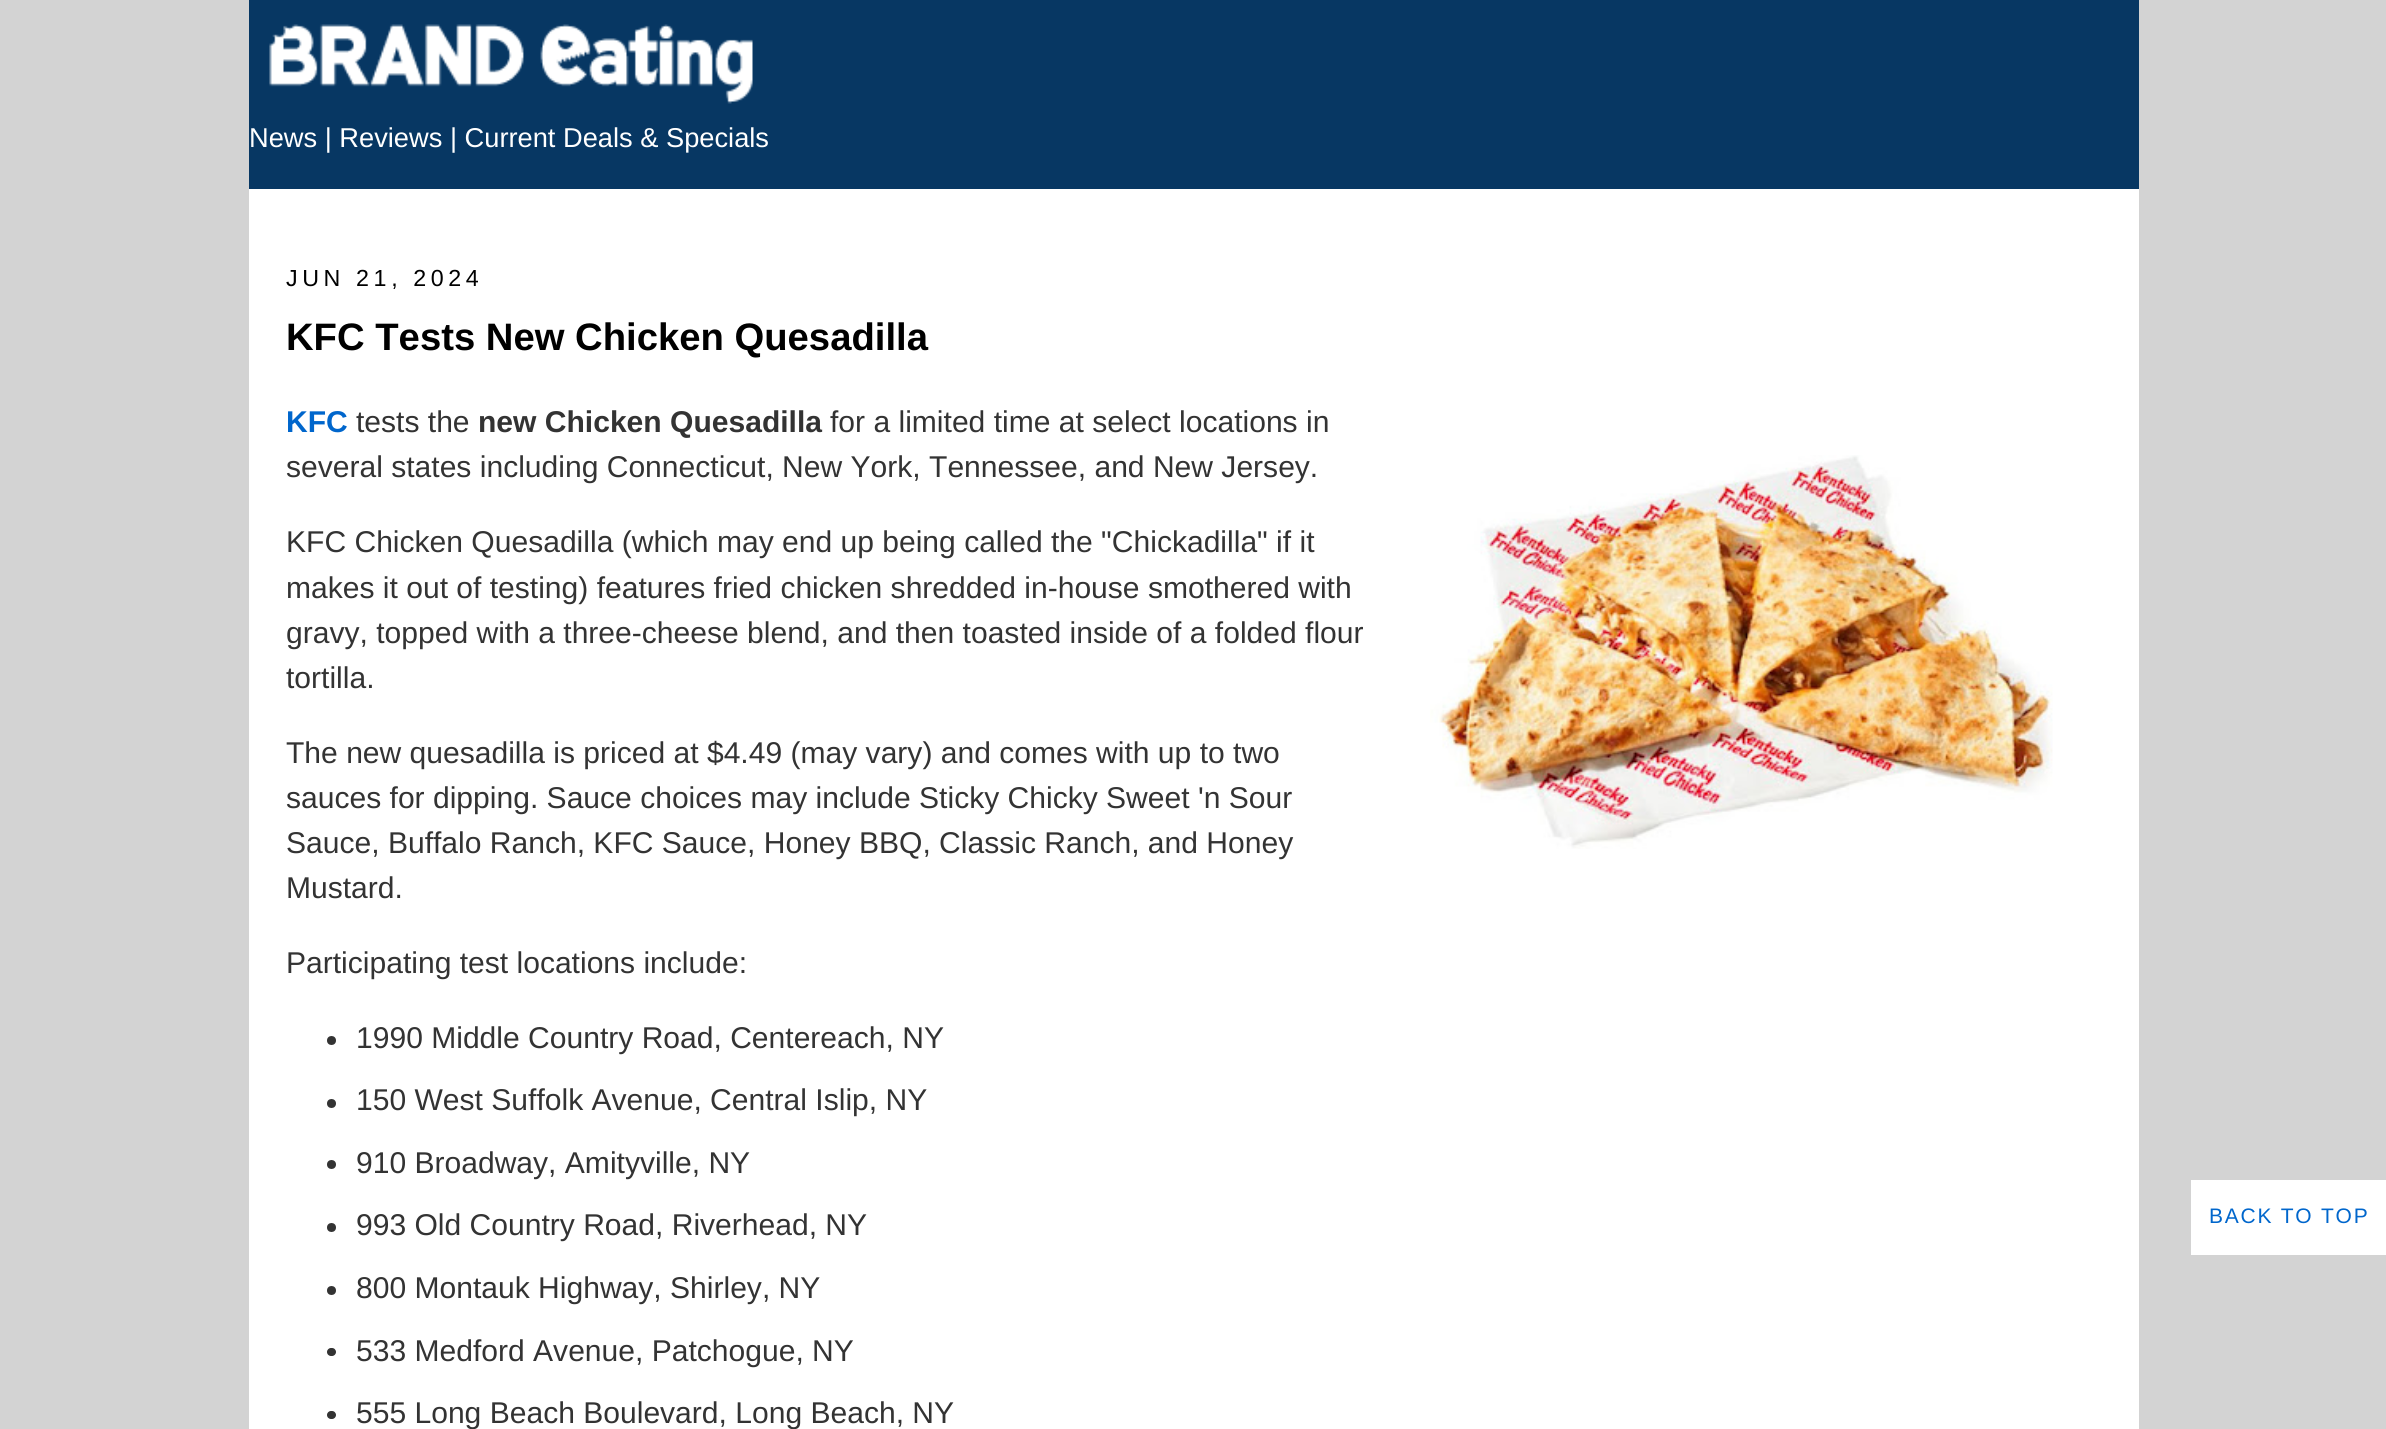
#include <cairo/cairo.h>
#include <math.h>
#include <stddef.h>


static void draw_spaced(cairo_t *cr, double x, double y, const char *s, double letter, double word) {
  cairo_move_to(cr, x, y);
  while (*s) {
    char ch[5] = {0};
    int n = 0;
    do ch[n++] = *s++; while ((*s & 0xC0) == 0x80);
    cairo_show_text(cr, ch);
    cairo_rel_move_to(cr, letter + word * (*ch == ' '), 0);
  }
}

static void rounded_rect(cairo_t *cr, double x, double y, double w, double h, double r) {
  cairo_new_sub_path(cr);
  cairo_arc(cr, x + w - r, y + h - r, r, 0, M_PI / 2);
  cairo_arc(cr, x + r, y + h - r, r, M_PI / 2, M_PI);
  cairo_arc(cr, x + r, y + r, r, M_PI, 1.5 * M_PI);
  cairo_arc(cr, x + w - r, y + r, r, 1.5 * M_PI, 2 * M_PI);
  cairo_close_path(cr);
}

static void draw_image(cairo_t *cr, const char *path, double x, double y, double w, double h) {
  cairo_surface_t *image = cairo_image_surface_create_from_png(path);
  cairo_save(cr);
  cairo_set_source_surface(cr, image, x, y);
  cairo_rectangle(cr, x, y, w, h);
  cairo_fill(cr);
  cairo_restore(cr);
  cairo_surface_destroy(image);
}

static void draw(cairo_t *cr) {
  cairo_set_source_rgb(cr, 211 / 255.0, 211 / 255.0, 211 / 255.0);
  cairo_paint(cr);
  cairo_set_source_rgb(cr, 1, 1, 1);
  cairo_rectangle(cr, 249, 189, 1890, 1240);
  cairo_fill(cr);
  cairo_set_source_rgb(cr, 7 / 255.0, 55 / 255.0, 99 / 255.0);
  cairo_rectangle(cr, 249, 0, 1890, 189);
  cairo_fill(cr);
  draw_image(cr, "images/1.png", 269, 24, 484, 80);
  draw_image(cr, "images/2.png", 1430, 455, 623, 394);
  cairo_set_source_rgb(cr, 51 / 255.0, 51 / 255.0, 51 / 255.0);
  cairo_arc(cr, 331.5, 1040.5, 4.5, 0, 2 * M_PI);
  cairo_fill(cr);
  cairo_arc(cr, 331.5, 1103.5, 4.5, 0, 2 * M_PI);
  cairo_fill(cr);
  cairo_arc(cr, 331.5, 1164.5, 4.5, 0, 2 * M_PI);
  cairo_fill(cr);
  cairo_arc(cr, 331.5, 1227.5, 4.5, 0, 2 * M_PI);
  cairo_fill(cr);
  cairo_arc(cr, 331.5, 1290.5, 4.5, 0, 2 * M_PI);
  cairo_fill(cr);
  rounded_rect(cr, 327, 1348, 9, 8, 4);
  cairo_fill(cr);
  rounded_rect(cr, 327, 1411, 9, 8, 4);
  cairo_fill(cr);
  cairo_set_source_rgb(cr, 1, 1, 1);
  cairo_rectangle(cr, 2191, 1180, 195, 75);
  cairo_fill(cr);
  cairo_select_font_face(cr, "Liberation Sans", CAIRO_FONT_SLANT_NORMAL, CAIRO_FONT_WEIGHT_NORMAL);
  cairo_set_font_size(cr, 27.25);
  cairo_move_to(cr, 249, 147);
  cairo_show_text(cr, "News | Reviews | Current Deals & Specials");
  cairo_set_font_size(cr, 23.25);
  cairo_set_source_rgb(cr, 0, 0, 0);
  draw_spaced(cr, 286, 286, "JUN 21, 2024", 4.6, 0);
  cairo_select_font_face(cr, "Liberation Sans", CAIRO_FONT_SLANT_NORMAL, CAIRO_FONT_WEIGHT_BOLD);
  cairo_set_font_size(cr, 38.25);
  cairo_move_to(cr, 286, 350);
  cairo_show_text(cr, "KFC Tests New Chicken Quesadilla");
  cairo_set_font_size(cr, 30.05);
  cairo_set_source_rgb(cr, 0, 102 / 255.0, 204 / 255.0);
  cairo_move_to(cr, 286, 432);
  cairo_show_text(cr, "KFC");
  cairo_select_font_face(cr, "Liberation Sans", CAIRO_FONT_SLANT_NORMAL, CAIRO_FONT_WEIGHT_NORMAL);
  cairo_set_source_rgb(cr, 51 / 255.0, 51 / 255.0, 51 / 255.0);
  cairo_move_to(cr, 356, 432);
  cairo_show_text(cr, "tests the");
  cairo_select_font_face(cr, "Liberation Sans", CAIRO_FONT_SLANT_NORMAL, CAIRO_FONT_WEIGHT_BOLD);
  cairo_move_to(cr, 478, 432);
  cairo_show_text(cr, "new Chicken Quesadilla");
  cairo_select_font_face(cr, "Liberation Sans", CAIRO_FONT_SLANT_NORMAL, CAIRO_FONT_WEIGHT_NORMAL);
  cairo_move_to(cr, 830, 432);
  cairo_show_text(cr, "for a limited time at select locations in");
  cairo_move_to(cr, 286, 477);
  cairo_show_text(cr, "several states including Connecticut, New York, Tennessee, and New Jersey.");
  cairo_move_to(cr, 286, 552);
  cairo_show_text(cr, "KFC Chicken Quesadilla (which may end up being called the \"Chickadilla\" if it");
  cairo_move_to(cr, 286, 598);
  cairo_show_text(cr, "makes it out of testing) features fried chicken shredded in-house smothered with");
  cairo_move_to(cr, 286, 643);
  cairo_show_text(cr, "gravy, topped with a three-cheese blend, and then toasted inside of a folded flour");
  cairo_move_to(cr, 286, 688);
  cairo_show_text(cr, "tortilla.");
  cairo_move_to(cr, 286, 763);
  cairo_show_text(cr, "The new quesadilla is priced at $4.49 (may vary) and comes with up to two");
  cairo_move_to(cr, 286, 808);
  cairo_show_text(cr, "sauces for dipping. Sauce choices may include Sticky Chicky Sweet 'n Sour");
  cairo_move_to(cr, 286, 853);
  cairo_show_text(cr, "Sauce, Buffalo Ranch, KFC Sauce, Honey BBQ, Classic Ranch, and Honey");
  cairo_move_to(cr, 286, 898);
  cairo_show_text(cr, "Mustard.");
  cairo_move_to(cr, 286, 973);
  cairo_show_text(cr, "Participating test locations include:");
  cairo_move_to(cr, 356, 1048);
  cairo_show_text(cr, "1990 Middle Country Road, Centereach, NY");
  cairo_move_to(cr, 356, 1110);
  cairo_show_text(cr, "150 West Suffolk Avenue, Central Islip, NY");
  cairo_move_to(cr, 356, 1173);
  cairo_show_text(cr, "910 Broadway, Amityville, NY");
  cairo_move_to(cr, 356, 1235);
  cairo_show_text(cr, "993 Old Country Road, Riverhead, NY");
  cairo_move_to(cr, 356, 1298);
  cairo_show_text(cr, "800 Montauk Highway, Shirley, NY");
  cairo_move_to(cr, 356, 1361);
  cairo_show_text(cr, "533 Medford Avenue, Patchogue, NY");
  cairo_move_to(cr, 356, 1423);
  cairo_show_text(cr, "555 Long Beach Boulevard, Long Beach, NY");
  cairo_set_font_size(cr, 21);
  cairo_set_source_rgb(cr, 0, 102 / 255.0, 204 / 255.0);
  draw_spaced(cr, 2209, 1223, "BACK TO TOP", 1.75, 0);
}

int main(void) {
  cairo_surface_t *surface = cairo_image_surface_create(CAIRO_FORMAT_RGB24, 2386, 1429);
  cairo_t *cr = cairo_create(surface);
  cairo_font_options_t *options = cairo_font_options_create();
  cairo_font_options_set_hint_metrics(options, CAIRO_HINT_METRICS_OFF);
  cairo_font_options_set_hint_style(options, CAIRO_HINT_STYLE_NONE);
  cairo_set_font_options(cr, options);
  cairo_set_miter_limit(cr, 4);
  draw(cr);
  cairo_surface_write_to_png(surface, "out.png");
  cairo_font_options_destroy(options);
  cairo_destroy(cr);
  cairo_surface_destroy(surface);
  return 0;
}
